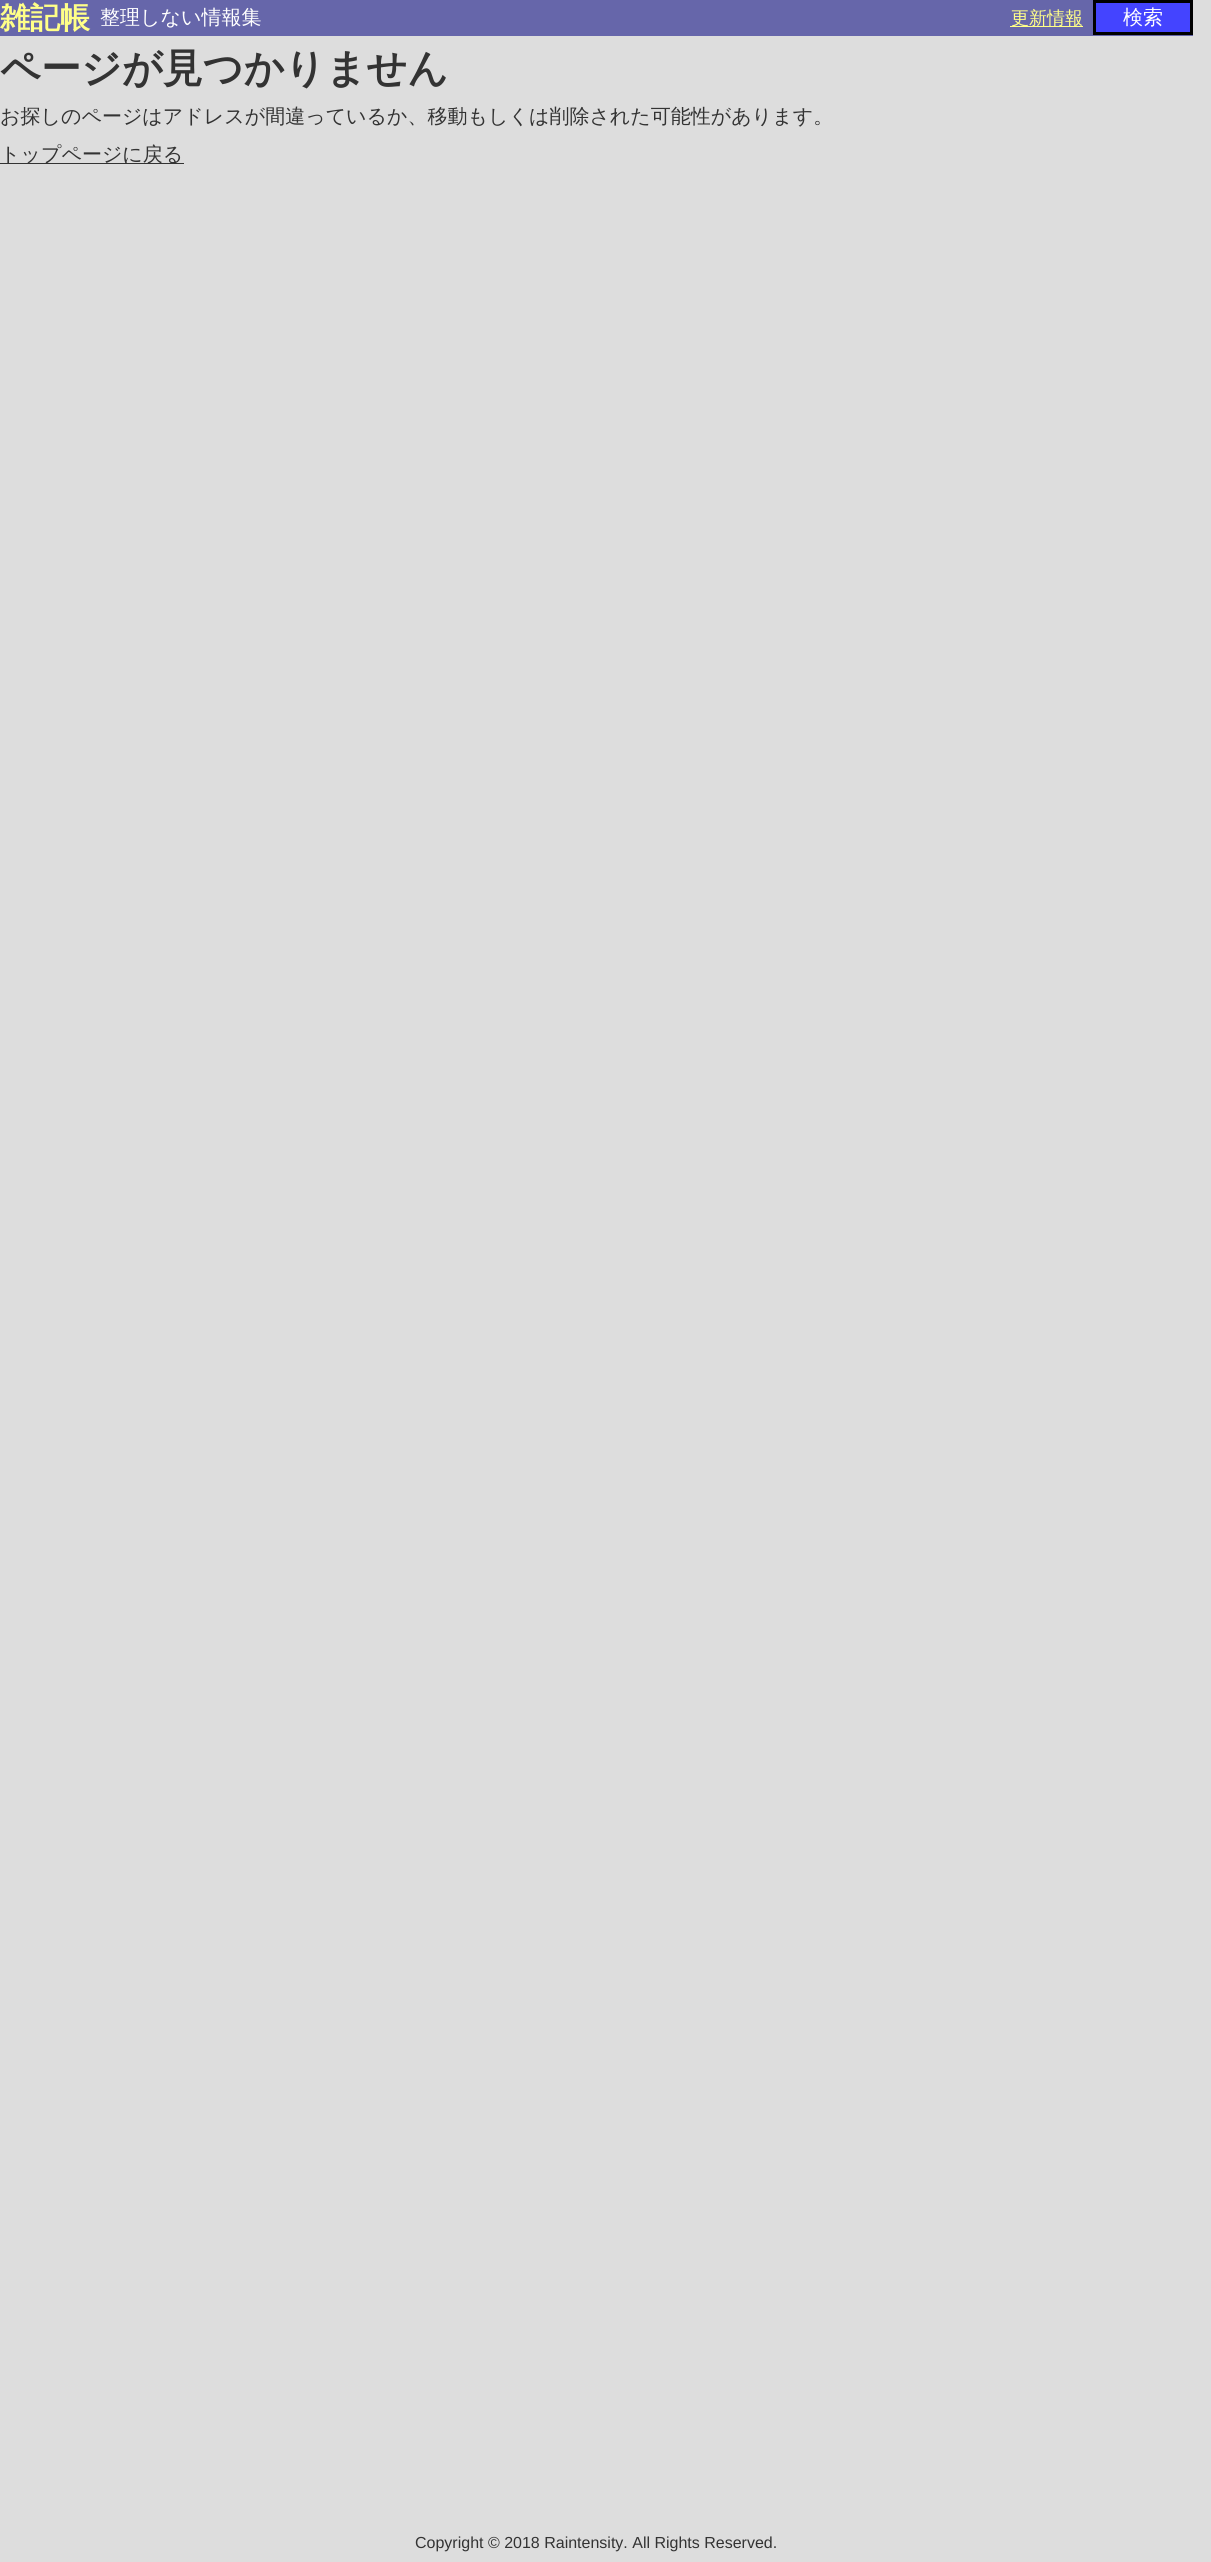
#include <cairo/cairo.h>
#include <math.h>
#include <stddef.h>


static void draw(cairo_t *cr) {
  cairo_set_source_rgb(cr, 221 / 255.0, 221 / 255.0, 221 / 255.0);
  cairo_paint(cr);
  cairo_set_source_rgb(cr, 102 / 255.0, 102 / 255.0, 170 / 255.0);
  cairo_rectangle(cr, 0, 0, 1193, 36);
  cairo_fill(cr);
  cairo_set_source_rgb(cr, 1, 1, 136 / 255.0);
  cairo_rectangle(cr, 1010, 26, 73, 1);
  cairo_fill(cr);
  cairo_set_source_rgb(cr, 68 / 255.0, 68 / 255.0, 1);
  cairo_rectangle(cr, 1094.5, 1.5, 97, 32);
  cairo_fill_preserve(cr);
  cairo_set_source_rgb(cr, 0, 0, 0);
  cairo_set_line_width(cr, 3);
  cairo_stroke(cr);
  cairo_set_source_rgb(cr, 51 / 255.0, 51 / 255.0, 51 / 255.0);
  cairo_rectangle(cr, 0, 163, 184, 1);
  cairo_fill(cr);
  cairo_select_font_face(cr, "WenQuanYi Zen Hei", CAIRO_FONT_SLANT_NORMAL, CAIRO_FONT_WEIGHT_BOLD);
  cairo_set_font_size(cr, 30);
  cairo_set_source_rgb(cr, 1, 1, 136 / 255.0);
  cairo_move_to(cr, 0, 28);
  cairo_show_text(cr, "雑記帳");
  cairo_select_font_face(cr, "WenQuanYi Zen Hei Medium", CAIRO_FONT_SLANT_NORMAL, CAIRO_FONT_WEIGHT_NORMAL);
  cairo_set_font_size(cr, 20);
  cairo_set_source_rgb(cr, 1, 1, 1);
  cairo_move_to(cr, 100, 24);
  cairo_show_text(cr, "整理しない情報集");
  cairo_set_font_size(cr, 18);
  cairo_set_source_rgb(cr, 1, 1, 136 / 255.0);
  cairo_move_to(cr, 1011, 24);
  cairo_show_text(cr, "更新情報");
  cairo_set_font_size(cr, 20);
  cairo_set_source_rgb(cr, 1, 1, 1);
  cairo_move_to(cr, 1123, 24);
  cairo_show_text(cr, "検索");
  cairo_select_font_face(cr, "WenQuanYi Zen Hei", CAIRO_FONT_SLANT_NORMAL, CAIRO_FONT_WEIGHT_BOLD);
  cairo_set_font_size(cr, 40);
  cairo_set_source_rgb(cr, 51 / 255.0, 51 / 255.0, 51 / 255.0);
  cairo_move_to(cr, 0, 82);
  cairo_show_text(cr, "ページが見つかりません");
  cairo_select_font_face(cr, "WenQuanYi Zen Hei Medium", CAIRO_FONT_SLANT_NORMAL, CAIRO_FONT_WEIGHT_NORMAL);
  cairo_set_font_size(cr, 20);
  cairo_move_to(cr, 0, 123);
  cairo_show_text(cr, "お探しのページはアドレスが間違っているか、移動もしくは削除された可能性があります。");
  cairo_move_to(cr, 0, 161);
  cairo_show_text(cr, "トップページに戻る");
  cairo_select_font_face(cr, "Liberation Sans", CAIRO_FONT_SLANT_NORMAL, CAIRO_FONT_WEIGHT_NORMAL);
  cairo_set_font_size(cr, 16);
  cairo_move_to(cr, 415, 2548);
  cairo_show_text(cr, "Copyright © 2018 Raintensity. All Rights Reserved.");
}

int main(void) {
  cairo_surface_t *surface = cairo_image_surface_create(CAIRO_FORMAT_RGB24, 1211, 2562);
  cairo_t *cr = cairo_create(surface);
  cairo_font_options_t *options = cairo_font_options_create();
  cairo_font_options_set_hint_metrics(options, CAIRO_HINT_METRICS_OFF);
  cairo_font_options_set_hint_style(options, CAIRO_HINT_STYLE_NONE);
  cairo_set_font_options(cr, options);
  cairo_set_miter_limit(cr, 4);
  draw(cr);
  cairo_surface_write_to_png(surface, "out.png");
  cairo_font_options_destroy(options);
  cairo_destroy(cr);
  cairo_surface_destroy(surface);
  return 0;
}
